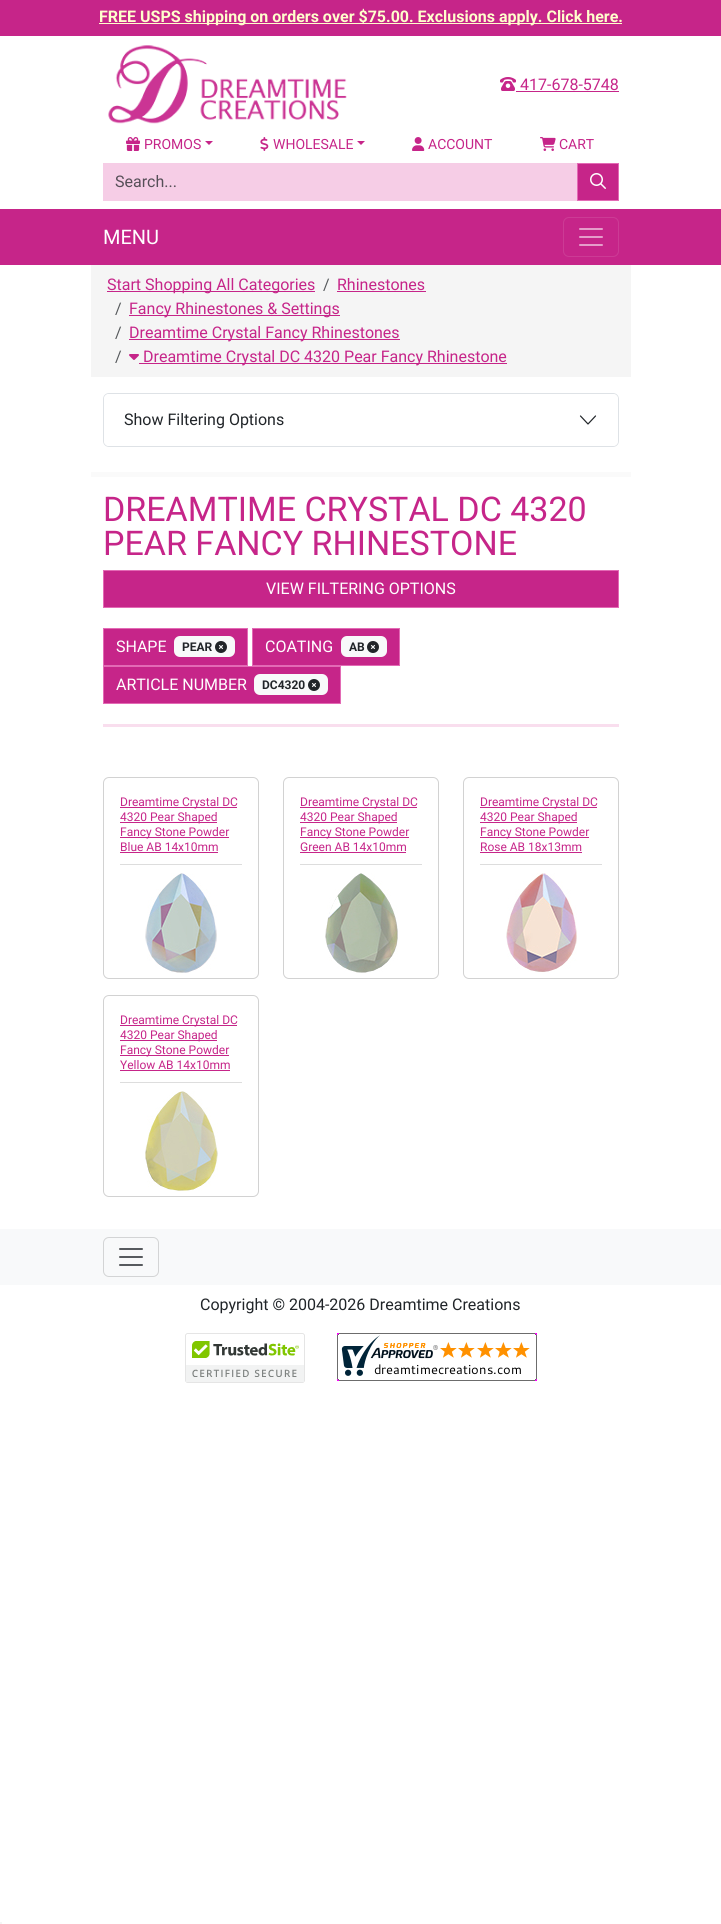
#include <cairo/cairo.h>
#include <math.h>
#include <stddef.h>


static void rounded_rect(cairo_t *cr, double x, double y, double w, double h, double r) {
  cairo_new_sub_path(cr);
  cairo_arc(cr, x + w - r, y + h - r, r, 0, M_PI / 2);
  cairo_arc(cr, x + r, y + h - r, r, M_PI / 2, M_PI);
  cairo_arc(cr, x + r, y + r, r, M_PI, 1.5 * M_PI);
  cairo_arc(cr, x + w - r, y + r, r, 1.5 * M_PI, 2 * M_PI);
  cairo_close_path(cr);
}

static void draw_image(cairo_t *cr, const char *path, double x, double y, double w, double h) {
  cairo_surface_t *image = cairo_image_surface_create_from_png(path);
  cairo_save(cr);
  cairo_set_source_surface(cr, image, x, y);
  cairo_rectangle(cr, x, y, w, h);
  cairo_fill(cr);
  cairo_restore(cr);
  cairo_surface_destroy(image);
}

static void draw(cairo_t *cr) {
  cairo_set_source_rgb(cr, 1, 1, 1);
  cairo_paint(cr);
  cairo_set_source_rgb(cr, 198 / 255.0, 37 / 255.0, 137 / 255.0);
  cairo_rectangle(cr, 0, 0, 721, 36);
  cairo_fill(cr);
  cairo_set_source_rgb(cr, 1, 1, 204 / 255.0);
  cairo_rectangle(cr, 99, 23, 523, 1);
  cairo_fill(cr);
  draw_image(cr, "images/1.png", 108, 45, 239, 79);
  draw_image(cr, "images/2.png", 500, 77, 16, 14);
  cairo_set_source_rgb(cr, 198 / 255.0, 37 / 255.0, 137 / 255.0);
  cairo_rectangle(cr, 516, 91, 103, 1);
  cairo_fill(cr);
  draw_image(cr, "images/3.png", 126, 137, 14, 14);
  cairo_new_path(cr);
  cairo_move_to(cr, 205, 141);
  cairo_line_to(cr, 213, 141);
  cairo_line_to(cr, 209, 145);
  cairo_close_path(cr);
  cairo_fill(cr);
  draw_image(cr, "images/4.png", 260, 137, 9, 14);
  cairo_new_path(cr);
  cairo_move_to(cr, 357, 141);
  cairo_line_to(cr, 365, 141);
  cairo_line_to(cr, 361, 145);
  cairo_close_path(cr);
  cairo_fill(cr);
  draw_image(cr, "images/5.png", 412, 137, 13, 14);
  draw_image(cr, "images/6.png", 540, 137, 16, 14);
  cairo_set_source_rgb(cr, 246 / 255.0, 205 / 255.0, 230 / 255.0);
  cairo_rectangle(cr, 103, 163, 474, 38);
  cairo_fill(cr);
  cairo_set_source_rgb(cr, 198 / 255.0, 37 / 255.0, 137 / 255.0);
  cairo_rectangle(cr, 577.5, 163.5, 41, 37);
  cairo_fill_preserve(cr);
  cairo_set_source_rgb(cr, 227 / 255.0, 106 / 255.0, 181 / 255.0);
  cairo_set_line_width(cr, 1);
  cairo_stroke(cr);
  draw_image(cr, "images/7.png", 590, 173, 16, 16);
  cairo_set_source_rgb(cr, 198 / 255.0, 37 / 255.0, 137 / 255.0);
  cairo_rectangle(cr, 0, 209, 721, 56);
  cairo_fill(cr);
  rounded_rect(cr, 563.5, 217.5, 55, 39, 5.5);
  cairo_set_source_rgb(cr, 204 / 255.0, 59 / 255.0, 149 / 255.0);
  cairo_stroke(cr);
  draw_image(cr, "images/8.png", 579, 228, 24, 18);
  cairo_set_source_rgb(cr, 245 / 255.0, 245 / 255.0, 245 / 255.0);
  cairo_rectangle(cr, 91, 265, 540, 112);
  cairo_fill(cr);
  cairo_set_source_rgb(cr, 198 / 255.0, 37 / 255.0, 137 / 255.0);
  cairo_rectangle(cr, 107, 291, 208, 1);
  cairo_fill(cr);
  cairo_rectangle(cr, 337, 291, 89, 1);
  cairo_fill(cr);
  cairo_rectangle(cr, 129, 315, 211, 1);
  cairo_fill(cr);
  cairo_rectangle(cr, 129, 339, 271, 1);
  cairo_fill(cr);
  draw_image(cr, "images/9.png", 129, 354, 10, 6);
  cairo_rectangle(cr, 139, 363, 368, 1);
  cairo_fill(cr);
  cairo_set_source_rgb(cr, 250 / 255.0, 250 / 255.0, 250 / 255.0);
  cairo_rectangle(cr, 91, 472, 540, 5);
  cairo_fill(cr);
  rounded_rect(cr, 103.5, 393.5, 515, 53, 5.5);
  cairo_set_source_rgb(cr, 222 / 255.0, 226 / 255.0, 230 / 255.0);
  cairo_stroke(cr);
  cairo_set_source_rgb(cr, 1, 1, 1);
  rounded_rect(cr, 104, 394, 514, 52, 5);
  cairo_fill(cr);
  cairo_new_path(cr);
  cairo_move_to(cr, 580.5, 416);
  cairo_line_to(cr, 588, 424);
  cairo_line_to(cr, 595.5, 416);
  cairo_set_source_rgb(cr, 33 / 255.0, 37 / 255.0, 41 / 255.0);
  cairo_set_line_width(cr, 1.2);
  cairo_set_line_cap(cr, CAIRO_LINE_CAP_ROUND);
  cairo_set_line_join(cr, CAIRO_LINE_JOIN_ROUND);
  cairo_stroke(cr);
  cairo_set_source_rgb(cr, 198 / 255.0, 37 / 255.0, 137 / 255.0);
  cairo_rectangle(cr, 103.5, 570.5, 515, 37);
  cairo_fill_preserve(cr);
  cairo_set_source_rgb(cr, 227 / 255.0, 106 / 255.0, 181 / 255.0);
  cairo_set_line_width(cr, 1);
  cairo_set_line_cap(cr, CAIRO_LINE_CAP_BUTT);
  cairo_set_line_join(cr, CAIRO_LINE_JOIN_MITER);
  cairo_stroke(cr);
  cairo_set_source_rgb(cr, 198 / 255.0, 37 / 255.0, 137 / 255.0);
  cairo_rectangle(cr, 103.5, 628.5, 144, 37);
  cairo_fill_preserve(cr);
  cairo_set_source_rgb(cr, 227 / 255.0, 106 / 255.0, 181 / 255.0);
  cairo_stroke(cr);
  cairo_set_source_rgb(cr, 248 / 255.0, 249 / 255.0, 250 / 255.0);
  rounded_rect(cr, 174, 636, 61, 21, 6);
  cairo_fill(cr);
  draw_image(cr, "images/10.png", 215, 641, 12, 12);
  cairo_set_source_rgb(cr, 198 / 255.0, 37 / 255.0, 137 / 255.0);
  cairo_rectangle(cr, 252.5, 628.5, 147, 37);
  cairo_fill_preserve(cr);
  cairo_set_source_rgb(cr, 227 / 255.0, 106 / 255.0, 181 / 255.0);
  cairo_stroke(cr);
  cairo_set_source_rgb(cr, 248 / 255.0, 249 / 255.0, 250 / 255.0);
  rounded_rect(cr, 341, 636, 46, 21, 6);
  cairo_fill(cr);
  draw_image(cr, "images/10.png", 367, 641, 12, 12);
  cairo_set_source_rgb(cr, 198 / 255.0, 37 / 255.0, 137 / 255.0);
  cairo_rectangle(cr, 103.5, 666.5, 237, 37);
  cairo_fill_preserve(cr);
  cairo_set_source_rgb(cr, 227 / 255.0, 106 / 255.0, 181 / 255.0);
  cairo_stroke(cr);
  cairo_set_source_rgb(cr, 248 / 255.0, 249 / 255.0, 250 / 255.0);
  rounded_rect(cr, 254, 674, 74, 21, 6);
  cairo_fill(cr);
  draw_image(cr, "images/10.png", 308, 679, 12, 12);
  cairo_set_source_rgb(cr, 249 / 255.0, 222 / 255.0, 238 / 255.0);
  cairo_rectangle(cr, 103, 724, 516, 3);
  cairo_fill(cr);
  rounded_rect(cr, 103.5, 777.5, 155, 201, 5.5);
  cairo_set_source_rgb(cr, 210 / 255.0, 210 / 255.0, 210 / 255.0);
  cairo_stroke(cr);
  cairo_set_source_rgb(cr, 221 / 255.0, 221 / 255.0, 221 / 255.0);
  cairo_rectangle(cr, 120, 864, 122, 1);
  cairo_fill(cr);
  cairo_set_source_rgb(cr, 198 / 255.0, 37 / 255.0, 137 / 255.0);
  cairo_rectangle(cr, 120, 807, 117, 1);
  cairo_fill(cr);
  cairo_rectangle(cr, 120, 822, 97, 1);
  cairo_fill(cr);
  cairo_rectangle(cr, 120, 837, 109, 1);
  cairo_fill(cr);
  cairo_rectangle(cr, 120, 852, 98, 1);
  cairo_fill(cr);
  draw_image(cr, "images/11.png", 145, 873, 72, 100);
  rounded_rect(cr, 283.5, 777.5, 155, 201, 5.5);
  cairo_set_source_rgb(cr, 210 / 255.0, 210 / 255.0, 210 / 255.0);
  cairo_stroke(cr);
  cairo_set_source_rgb(cr, 221 / 255.0, 221 / 255.0, 221 / 255.0);
  cairo_rectangle(cr, 300, 864, 122, 1);
  cairo_fill(cr);
  cairo_set_source_rgb(cr, 198 / 255.0, 37 / 255.0, 137 / 255.0);
  cairo_rectangle(cr, 300, 807, 117, 1);
  cairo_fill(cr);
  cairo_rectangle(cr, 300, 822, 97, 1);
  cairo_fill(cr);
  cairo_rectangle(cr, 300, 837, 109, 1);
  cairo_fill(cr);
  cairo_rectangle(cr, 300, 852, 106, 1);
  cairo_fill(cr);
  draw_image(cr, "images/12.png", 325, 873, 73, 100);
  rounded_rect(cr, 463.5, 777.5, 155, 201, 5.5);
  cairo_set_source_rgb(cr, 210 / 255.0, 210 / 255.0, 210 / 255.0);
  cairo_stroke(cr);
  cairo_set_source_rgb(cr, 221 / 255.0, 221 / 255.0, 221 / 255.0);
  cairo_rectangle(cr, 480, 864, 122, 1);
  cairo_fill(cr);
  cairo_set_source_rgb(cr, 198 / 255.0, 37 / 255.0, 137 / 255.0);
  cairo_rectangle(cr, 480, 807, 117, 1);
  cairo_fill(cr);
  cairo_rectangle(cr, 480, 822, 97, 1);
  cairo_fill(cr);
  cairo_rectangle(cr, 480, 837, 109, 1);
  cairo_fill(cr);
  cairo_rectangle(cr, 480, 852, 102, 1);
  cairo_fill(cr);
  draw_image(cr, "images/13.png", 506, 873, 71, 99);
  rounded_rect(cr, 103.5, 995.5, 155, 201, 5.5);
  cairo_set_source_rgb(cr, 210 / 255.0, 210 / 255.0, 210 / 255.0);
  cairo_stroke(cr);
  cairo_set_source_rgb(cr, 221 / 255.0, 221 / 255.0, 221 / 255.0);
  cairo_rectangle(cr, 120, 1082, 122, 1);
  cairo_fill(cr);
  cairo_set_source_rgb(cr, 198 / 255.0, 37 / 255.0, 137 / 255.0);
  cairo_rectangle(cr, 120, 1025, 117, 1);
  cairo_fill(cr);
  cairo_rectangle(cr, 120, 1040, 97, 1);
  cairo_fill(cr);
  cairo_rectangle(cr, 120, 1055, 109, 1);
  cairo_fill(cr);
  cairo_rectangle(cr, 120, 1070, 110, 1);
  cairo_fill(cr);
  draw_image(cr, "images/14.png", 145, 1091, 73, 100);
  cairo_set_source_rgb(cr, 248 / 255.0, 249 / 255.0, 250 / 255.0);
  cairo_rectangle(cr, 0, 1229, 721, 56);
  cairo_fill(cr);
  rounded_rect(cr, 103.5, 1237.5, 55, 39, 5.5);
  cairo_set_source_rgb(cr, 211 / 255.0, 212 / 255.0, 213 / 255.0);
  cairo_stroke(cr);
  draw_image(cr, "images/15.png", 119, 1248, 24, 18);
  draw_image(cr, "images/16.png", 185, 1333, 120, 50);
  draw_image(cr, "images/17.png", 337, 1333, 200, 48);
  cairo_set_source_rgb(cr, 245 / 255.0, 245 / 255.0, 245 / 255.0);
  cairo_rectangle(cr, 0, 1922, 2, 2);
  cairo_fill(cr);
  cairo_select_font_face(cr, "Roboto", CAIRO_FONT_SLANT_NORMAL, CAIRO_FONT_WEIGHT_BOLD);
  cairo_set_font_size(cr, 16);
  cairo_set_source_rgb(cr, 1, 1, 204 / 255.0);
  cairo_move_to(cr, 99, 22);
  cairo_show_text(cr, "FREE USPS shipping on orders over $75.00. Exclusions apply. Click here.");
  cairo_select_font_face(cr, "Roboto", CAIRO_FONT_SLANT_NORMAL, CAIRO_FONT_WEIGHT_NORMAL);
  cairo_set_source_rgb(cr, 198 / 255.0, 37 / 255.0, 137 / 255.0);
  cairo_move_to(cr, 520, 90);
  cairo_show_text(cr, "417-678-5748");
  cairo_set_font_size(cr, 14);
  cairo_move_to(cr, 144, 149);
  cairo_show_text(cr, "PROMOS");
  cairo_move_to(cr, 273, 149);
  cairo_show_text(cr, "WHOLESALE");
  cairo_move_to(cr, 428, 149);
  cairo_show_text(cr, "ACCOUNT");
  cairo_move_to(cr, 559, 149);
  cairo_show_text(cr, "CART");
  cairo_set_font_size(cr, 16);
  cairo_set_source_rgb(cr, 86 / 255.0, 79 / 255.0, 88 / 255.0);
  cairo_move_to(cr, 115, 187);
  cairo_show_text(cr, "Search...");
  cairo_set_font_size(cr, 20);
  cairo_set_source_rgb(cr, 1, 1, 1);
  cairo_move_to(cr, 103, 244);
  cairo_show_text(cr, "MENU");
  cairo_set_font_size(cr, 16);
  cairo_set_source_rgb(cr, 198 / 255.0, 37 / 255.0, 137 / 255.0);
  cairo_move_to(cr, 107, 290);
  cairo_show_text(cr, "Start Shopping All Categories");
  cairo_set_source_rgb(cr, 86 / 255.0, 89 / 255.0, 92 / 255.0);
  cairo_move_to(cr, 323, 290);
  cairo_show_text(cr, "/");
  cairo_set_source_rgb(cr, 198 / 255.0, 37 / 255.0, 137 / 255.0);
  cairo_move_to(cr, 337, 290);
  cairo_show_text(cr, "Rhinestones");
  cairo_set_source_rgb(cr, 86 / 255.0, 89 / 255.0, 92 / 255.0);
  cairo_move_to(cr, 115, 314);
  cairo_show_text(cr, "/");
  cairo_set_source_rgb(cr, 198 / 255.0, 37 / 255.0, 137 / 255.0);
  cairo_move_to(cr, 129, 314);
  cairo_show_text(cr, "Fancy Rhinestones & Settings");
  cairo_set_source_rgb(cr, 86 / 255.0, 89 / 255.0, 92 / 255.0);
  cairo_move_to(cr, 115, 338);
  cairo_show_text(cr, "/");
  cairo_set_source_rgb(cr, 198 / 255.0, 37 / 255.0, 137 / 255.0);
  cairo_move_to(cr, 129, 338);
  cairo_show_text(cr, "Dreamtime Crystal Fancy Rhinestones");
  cairo_set_source_rgb(cr, 86 / 255.0, 89 / 255.0, 92 / 255.0);
  cairo_move_to(cr, 115, 362);
  cairo_show_text(cr, "/");
  cairo_set_source_rgb(cr, 198 / 255.0, 37 / 255.0, 137 / 255.0);
  cairo_move_to(cr, 143, 362);
  cairo_show_text(cr, "Dreamtime Crystal DC 4320 Pear Fancy Rhinestone");
  cairo_set_source_rgb(cr, 33 / 255.0, 37 / 255.0, 41 / 255.0);
  cairo_move_to(cr, 124, 425);
  cairo_show_text(cr, "Show Filtering Options");
  cairo_set_font_size(cr, 34);
  cairo_set_source_rgb(cr, 198 / 255.0, 37 / 255.0, 137 / 255.0);
  cairo_move_to(cr, 103, 521);
  cairo_show_text(cr, "DREAMTIME CRYSTAL DC 4320");
  cairo_move_to(cr, 103, 555);
  cairo_show_text(cr, "PEAR FANCY RHINESTONE");
  cairo_set_font_size(cr, 16);
  cairo_set_source_rgb(cr, 1, 1, 1);
  cairo_move_to(cr, 266, 594);
  cairo_show_text(cr, "VIEW FILTERING OPTIONS");
  cairo_move_to(cr, 116, 652);
  cairo_show_text(cr, "SHAPE");
  cairo_select_font_face(cr, "Roboto", CAIRO_FONT_SLANT_NORMAL, CAIRO_FONT_WEIGHT_BOLD);
  cairo_set_font_size(cr, 12);
  cairo_set_source_rgb(cr, 33 / 255.0, 37 / 255.0, 41 / 255.0);
  cairo_move_to(cr, 182, 651);
  cairo_show_text(cr, "PEAR");
  cairo_select_font_face(cr, "Roboto", CAIRO_FONT_SLANT_NORMAL, CAIRO_FONT_WEIGHT_NORMAL);
  cairo_set_font_size(cr, 16);
  cairo_set_source_rgb(cr, 1, 1, 1);
  cairo_move_to(cr, 265, 652);
  cairo_show_text(cr, "COATING");
  cairo_select_font_face(cr, "Roboto", CAIRO_FONT_SLANT_NORMAL, CAIRO_FONT_WEIGHT_BOLD);
  cairo_set_font_size(cr, 12);
  cairo_set_source_rgb(cr, 33 / 255.0, 37 / 255.0, 41 / 255.0);
  cairo_move_to(cr, 349, 651);
  cairo_show_text(cr, "AB");
  cairo_select_font_face(cr, "Roboto", CAIRO_FONT_SLANT_NORMAL, CAIRO_FONT_WEIGHT_NORMAL);
  cairo_set_font_size(cr, 16);
  cairo_set_source_rgb(cr, 1, 1, 1);
  cairo_move_to(cr, 116, 690);
  cairo_show_text(cr, "ARTICLE NUMBER");
  cairo_select_font_face(cr, "Roboto", CAIRO_FONT_SLANT_NORMAL, CAIRO_FONT_WEIGHT_BOLD);
  cairo_set_font_size(cr, 12);
  cairo_set_source_rgb(cr, 33 / 255.0, 37 / 255.0, 41 / 255.0);
  cairo_move_to(cr, 262, 689);
  cairo_show_text(cr, "DC4320");
  cairo_select_font_face(cr, "Roboto", CAIRO_FONT_SLANT_NORMAL, CAIRO_FONT_WEIGHT_NORMAL);
  cairo_set_source_rgb(cr, 198 / 255.0, 37 / 255.0, 137 / 255.0);
  cairo_move_to(cr, 120, 806);
  cairo_show_text(cr, "Dreamtime Crystal DC");
  cairo_move_to(cr, 120, 821);
  cairo_show_text(cr, "4320 Pear Shaped");
  cairo_move_to(cr, 120, 836);
  cairo_show_text(cr, "Fancy Stone Powder");
  cairo_move_to(cr, 120, 851);
  cairo_show_text(cr, "Blue AB 14x10mm");
  cairo_move_to(cr, 300, 806);
  cairo_show_text(cr, "Dreamtime Crystal DC");
  cairo_move_to(cr, 300, 821);
  cairo_show_text(cr, "4320 Pear Shaped");
  cairo_move_to(cr, 300, 836);
  cairo_show_text(cr, "Fancy Stone Powder");
  cairo_move_to(cr, 300, 851);
  cairo_show_text(cr, "Green AB 14x10mm");
  cairo_move_to(cr, 480, 806);
  cairo_show_text(cr, "Dreamtime Crystal DC");
  cairo_move_to(cr, 480, 821);
  cairo_show_text(cr, "4320 Pear Shaped");
  cairo_move_to(cr, 480, 836);
  cairo_show_text(cr, "Fancy Stone Powder");
  cairo_move_to(cr, 480, 851);
  cairo_show_text(cr, "Rose AB 18x13mm");
  cairo_move_to(cr, 120, 1024);
  cairo_show_text(cr, "Dreamtime Crystal DC");
  cairo_move_to(cr, 120, 1039);
  cairo_show_text(cr, "4320 Pear Shaped");
  cairo_move_to(cr, 120, 1054);
  cairo_show_text(cr, "Fancy Stone Powder");
  cairo_move_to(cr, 120, 1069);
  cairo_show_text(cr, "Yellow AB 14x10mm");
  cairo_set_font_size(cr, 16);
  cairo_set_source_rgb(cr, 33 / 255.0, 37 / 255.0, 41 / 255.0);
  cairo_move_to(cr, 200, 1310);
  cairo_show_text(cr, "Copyright © 2004-2026 Dreamtime Creations");
}

int main(void) {
  cairo_surface_t *surface = cairo_image_surface_create(CAIRO_FORMAT_RGB24, 721, 1924);
  cairo_t *cr = cairo_create(surface);
  cairo_font_options_t *options = cairo_font_options_create();
  cairo_font_options_set_hint_metrics(options, CAIRO_HINT_METRICS_OFF);
  cairo_font_options_set_hint_style(options, CAIRO_HINT_STYLE_NONE);
  cairo_set_font_options(cr, options);
  cairo_set_miter_limit(cr, 4);
  draw(cr);
  cairo_surface_write_to_png(surface, "out.png");
  cairo_font_options_destroy(options);
  cairo_destroy(cr);
  cairo_surface_destroy(surface);
  return 0;
}
